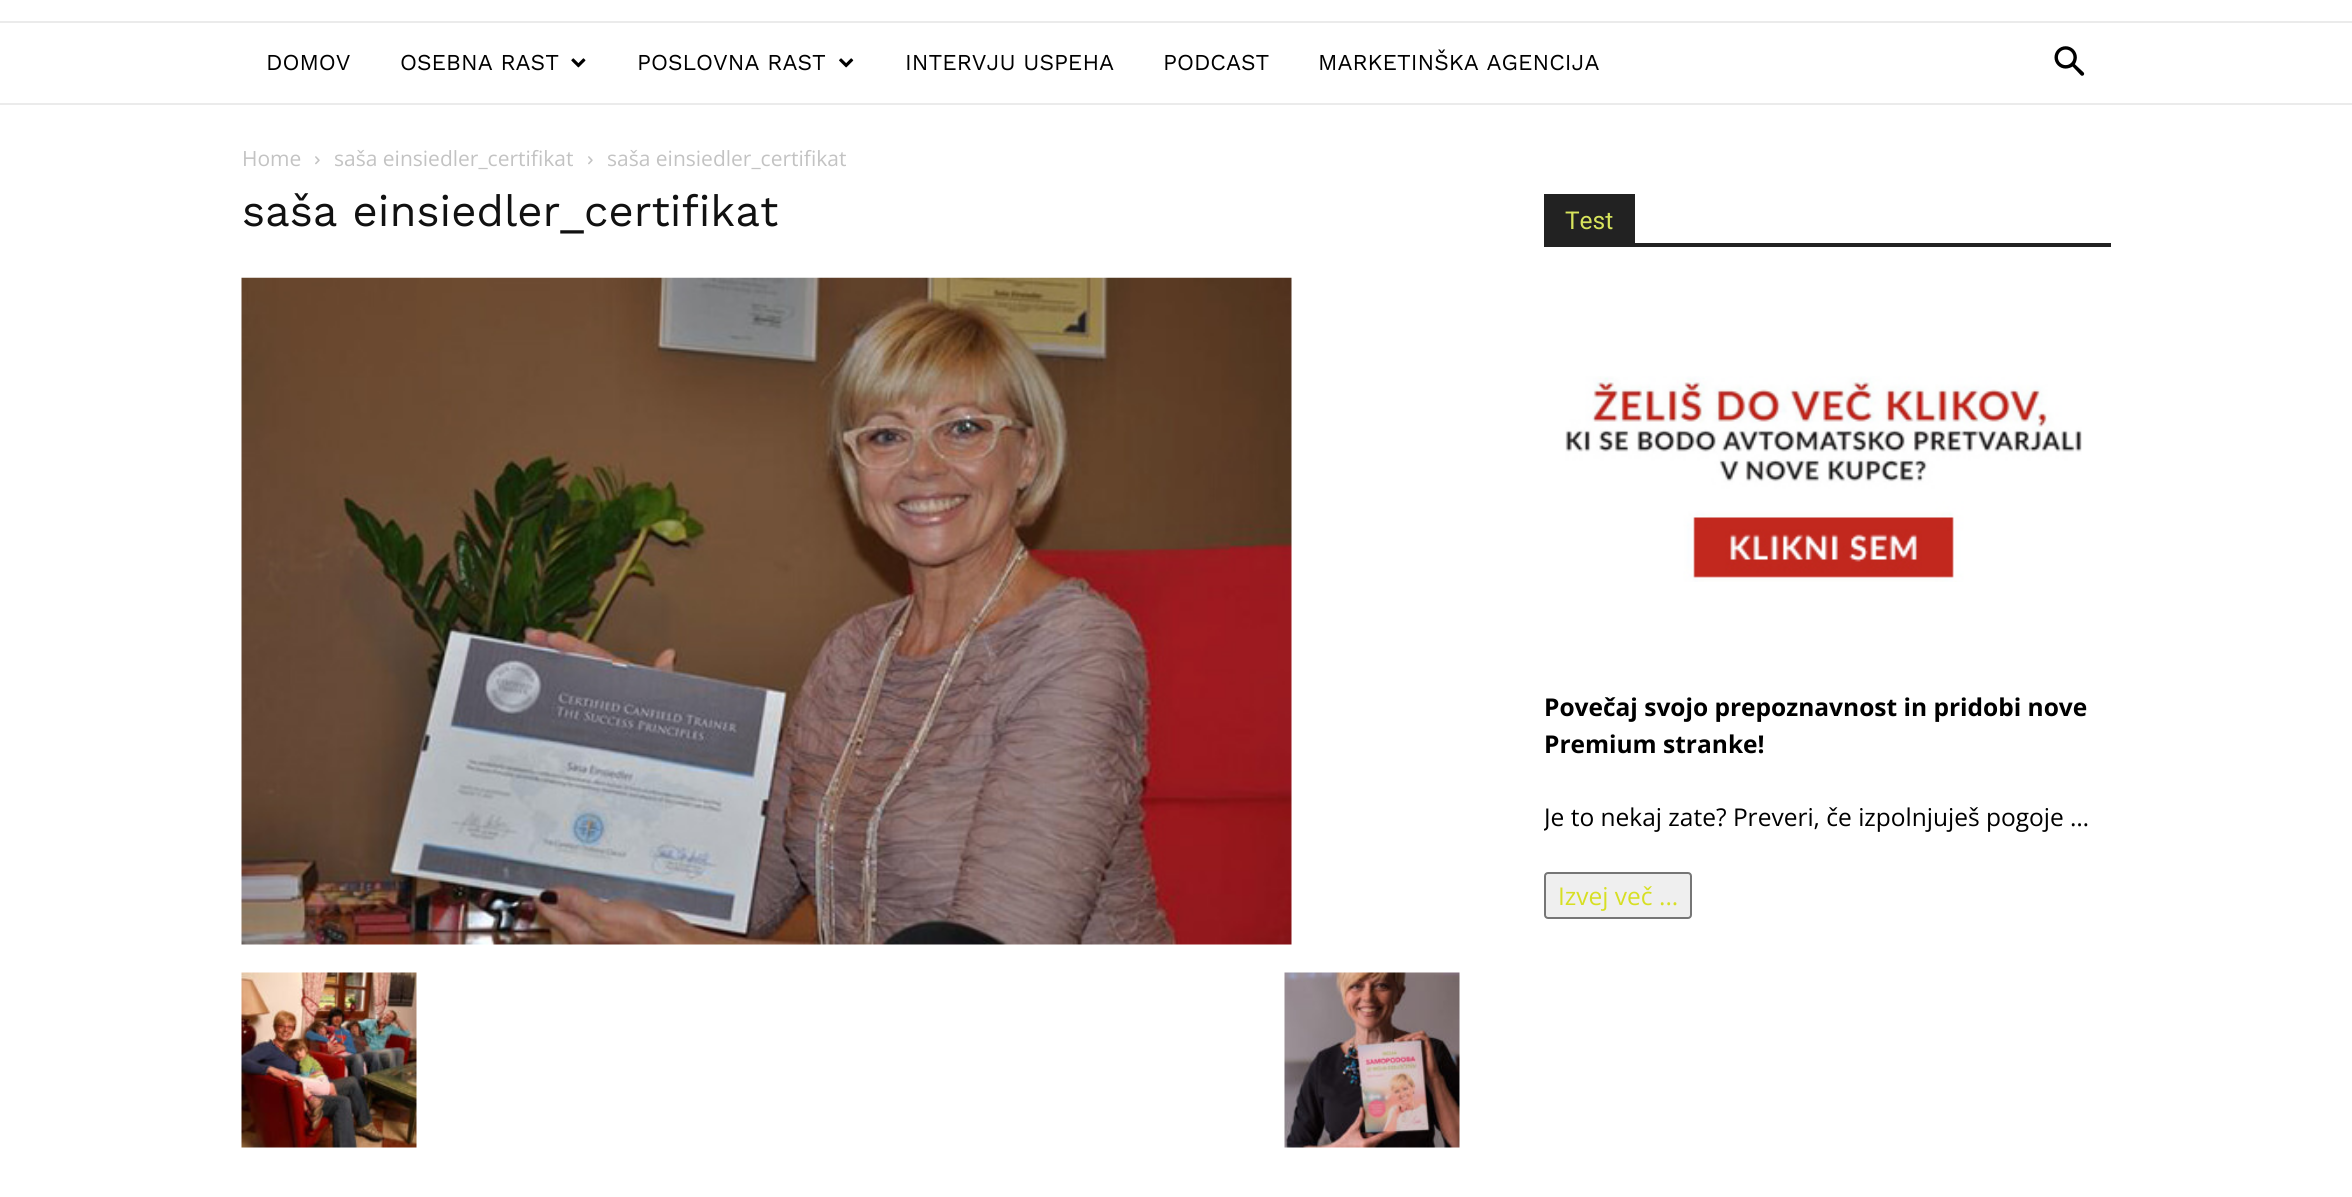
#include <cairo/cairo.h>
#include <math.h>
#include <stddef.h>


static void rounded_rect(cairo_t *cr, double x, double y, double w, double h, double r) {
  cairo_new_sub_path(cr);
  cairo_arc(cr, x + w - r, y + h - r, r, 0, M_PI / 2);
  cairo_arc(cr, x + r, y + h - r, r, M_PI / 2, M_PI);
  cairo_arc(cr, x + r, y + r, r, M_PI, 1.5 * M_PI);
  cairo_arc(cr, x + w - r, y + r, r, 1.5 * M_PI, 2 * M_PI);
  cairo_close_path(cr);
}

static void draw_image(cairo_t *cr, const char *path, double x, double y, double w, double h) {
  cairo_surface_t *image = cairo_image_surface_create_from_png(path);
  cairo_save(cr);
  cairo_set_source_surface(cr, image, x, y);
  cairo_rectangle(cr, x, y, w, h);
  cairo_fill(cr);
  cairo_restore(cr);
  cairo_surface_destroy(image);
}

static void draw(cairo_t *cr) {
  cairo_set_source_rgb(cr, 1, 1, 1);
  cairo_paint(cr);
  cairo_set_source_rgb(cr, 235 / 255.0, 235 / 255.0, 235 / 255.0);
  cairo_rectangle(cr, 0, 21, 2352, 2);
  cairo_fill(cr);
  draw_image(cr, "images/1.png", 571, 58, 15, 10);
  draw_image(cr, "images/2.png", 839, 58, 15, 10);
  draw_image(cr, "images/3.png", 2054, 46, 31, 30);
  cairo_rectangle(cr, 0, 103, 2352, 2);
  cairo_fill(cr);
  draw_image(cr, "images/4.png", 315, 156, 5, 9);
  draw_image(cr, "images/4.png", 588, 156, 5, 9);
  draw_image(cr, "images/5.png", 241, 277, 1051, 668);
  draw_image(cr, "images/6.png", 241, 972, 176, 176);
  draw_image(cr, "images/7.png", 1284, 972, 176, 176);
  cairo_set_source_rgb(cr, 34 / 255.0, 34 / 255.0, 34 / 255.0);
  cairo_rectangle(cr, 1544, 243, 567, 4);
  cairo_fill(cr);
  cairo_rectangle(cr, 1544, 194, 91, 49);
  cairo_fill(cr);
  draw_image(cr, "images/8.png", 1565, 376, 517, 206);
  cairo_set_source_rgb(cr, 239 / 255.0, 239 / 255.0, 239 / 255.0);
  rounded_rect(cr, 1545, 873, 146, 45, 3);
  cairo_fill_preserve(cr);
  cairo_set_source_rgb(cr, 118 / 255.0, 118 / 255.0, 118 / 255.0);
  cairo_stroke(cr);
  cairo_select_font_face(cr, "Work Sans", CAIRO_FONT_SLANT_NORMAL, CAIRO_FONT_WEIGHT_NORMAL);
  cairo_set_font_size(cr, 22.75);
  cairo_set_source_rgb(cr, 0, 0, 0);
  cairo_move_to(cr, 266, 70);
  cairo_show_text(cr, "DOMOV");
  cairo_move_to(cr, 400, 70);
  cairo_show_text(cr, "OSEBNA RAST");
  cairo_move_to(cr, 637, 70);
  cairo_show_text(cr, "POSLOVNA RAST");
  cairo_move_to(cr, 905, 70);
  cairo_show_text(cr, "INTERVJU USPEHA");
  cairo_move_to(cr, 1163, 70);
  cairo_show_text(cr, "PODCAST");
  cairo_move_to(cr, 1318, 70);
  cairo_show_text(cr, "MARKETINŠKA AGENCIJA");
  cairo_select_font_face(cr, "Open Sans", CAIRO_FONT_SLANT_NORMAL, CAIRO_FONT_WEIGHT_NORMAL);
  cairo_set_font_size(cr, 21);
  cairo_set_source_rgb(cr, 195 / 255.0, 195 / 255.0, 195 / 255.0);
  cairo_move_to(cr, 242, 166);
  cairo_show_text(cr, "Home");
  cairo_move_to(cr, 334, 166);
  cairo_show_text(cr, "saša einsiedler_certifikat");
  cairo_move_to(cr, 607, 166);
  cairo_show_text(cr, "saša einsiedler_certifikat");
  cairo_select_font_face(cr, "Work Sans", CAIRO_FONT_SLANT_NORMAL, CAIRO_FONT_WEIGHT_NORMAL);
  cairo_set_font_size(cr, 43.75);
  cairo_set_source_rgb(cr, 17 / 255.0, 17 / 255.0, 17 / 255.0);
  cairo_move_to(cr, 242, 226);
  cairo_show_text(cr, "saša einsiedler_certifikat");
  cairo_select_font_face(cr, "Roboto", CAIRO_FONT_SLANT_NORMAL, CAIRO_FONT_WEIGHT_NORMAL);
  cairo_set_font_size(cr, 24.5);
  cairo_set_source_rgb(cr, 215 / 255.0, 228 / 255.0, 92 / 255.0);
  cairo_move_to(cr, 1565, 229);
  cairo_show_text(cr, "Test");
  cairo_select_font_face(cr, "Open Sans", CAIRO_FONT_SLANT_NORMAL, CAIRO_FONT_WEIGHT_BOLD);
  cairo_set_source_rgb(cr, 0, 0, 0);
  cairo_move_to(cr, 1544, 716);
  cairo_show_text(cr, "Povečaj svojo prepoznavnost in pridobi nove");
  cairo_move_to(cr, 1544, 753);
  cairo_show_text(cr, "Premium stranke!");
  cairo_save(cr);
  cairo_rectangle(cr, 1544, 194, 567, 762);
  cairo_clip(cr);
  cairo_select_font_face(cr, "Open Sans", CAIRO_FONT_SLANT_NORMAL, CAIRO_FONT_WEIGHT_NORMAL);
  cairo_move_to(cr, 1544, 826);
  cairo_show_text(cr, "Je to nekaj zate? Preveri, če izpolnjuješ pogoje …");
  cairo_restore(cr);
  cairo_select_font_face(cr, "Open Sans", CAIRO_FONT_SLANT_NORMAL, CAIRO_FONT_WEIGHT_NORMAL);
  cairo_set_source_rgb(cr, 215 / 255.0, 223 / 255.0, 35 / 255.0);
  cairo_move_to(cr, 1558, 905);
  cairo_show_text(cr, "Izvej več ...");
}

int main(void) {
  cairo_surface_t *surface = cairo_image_surface_create(CAIRO_FORMAT_RGB24, 2352, 1197);
  cairo_t *cr = cairo_create(surface);
  cairo_font_options_t *options = cairo_font_options_create();
  cairo_font_options_set_hint_metrics(options, CAIRO_HINT_METRICS_OFF);
  cairo_font_options_set_hint_style(options, CAIRO_HINT_STYLE_NONE);
  cairo_set_font_options(cr, options);
  cairo_set_miter_limit(cr, 4);
  draw(cr);
  cairo_surface_write_to_png(surface, "out.png");
  cairo_font_options_destroy(options);
  cairo_destroy(cr);
  cairo_surface_destroy(surface);
  return 0;
}
